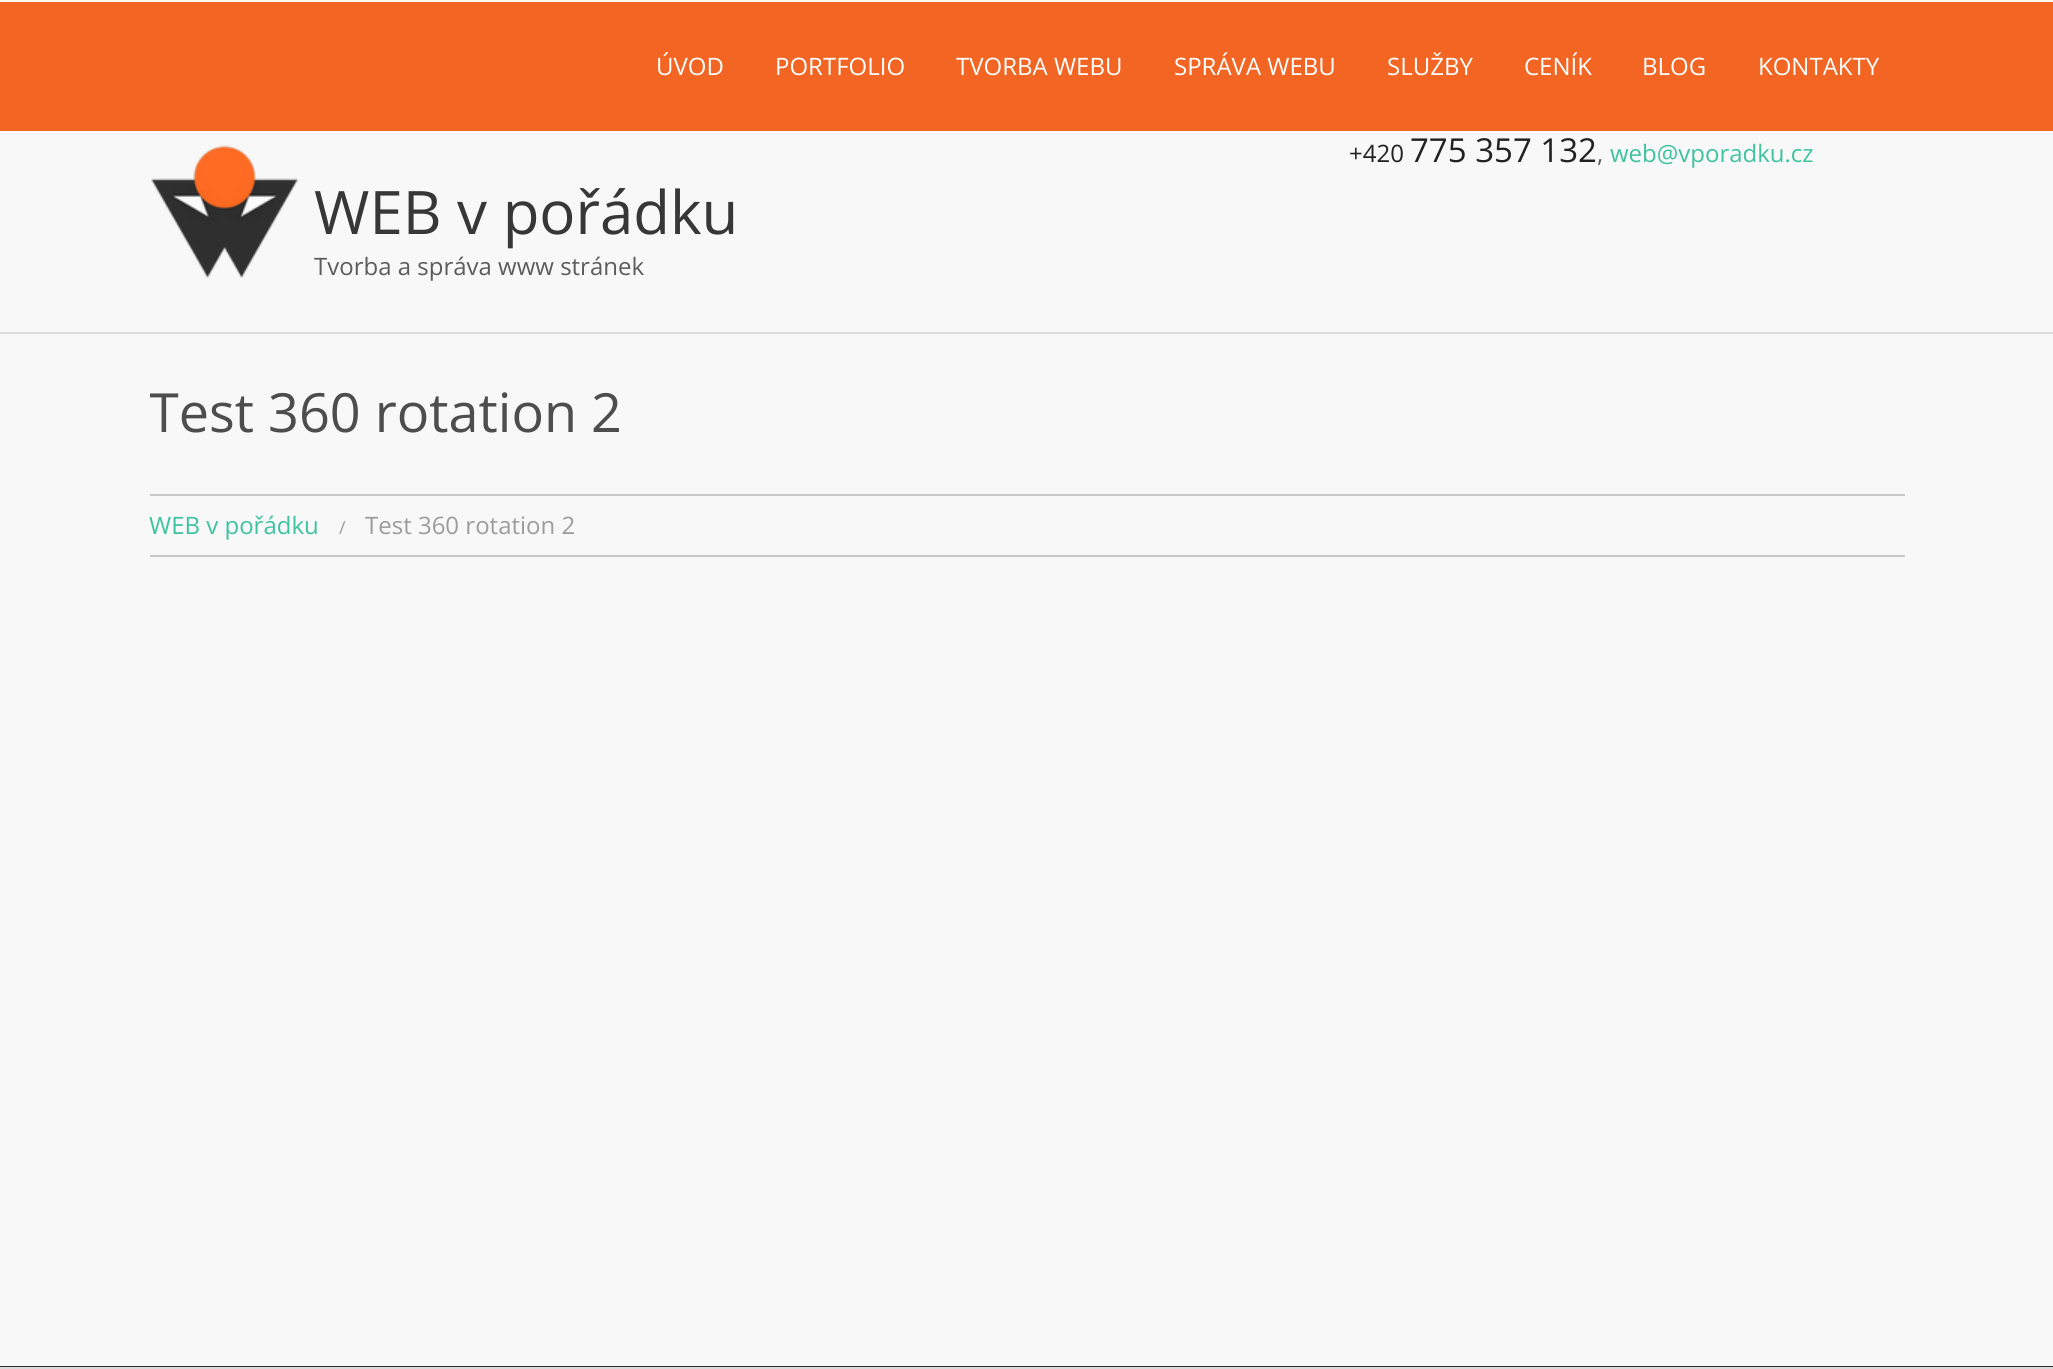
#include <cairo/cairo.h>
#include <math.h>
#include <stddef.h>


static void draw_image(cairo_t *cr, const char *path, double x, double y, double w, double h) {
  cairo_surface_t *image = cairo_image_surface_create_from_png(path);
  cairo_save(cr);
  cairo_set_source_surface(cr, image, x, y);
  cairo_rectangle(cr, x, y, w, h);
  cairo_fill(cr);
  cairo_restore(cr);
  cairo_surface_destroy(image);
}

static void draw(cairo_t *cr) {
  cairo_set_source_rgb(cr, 248 / 255.0, 248 / 255.0, 248 / 255.0);
  cairo_paint(cr);
  cairo_set_source_rgb(cr, 221 / 255.0, 221 / 255.0, 221 / 255.0);
  cairo_rectangle(cr, 0, 332, 2053, 2);
  cairo_fill(cr);
  cairo_set_source_rgb(cr, 242 / 255.0, 101 / 255.0, 34 / 255.0);
  cairo_rectangle(cr, 0, 2, 2053, 129);
  cairo_fill(cr);
  draw_image(cr, "images/1.png", 151, 145, 148, 133);
  cairo_set_source_rgb(cr, 199 / 255.0, 199 / 255.0, 199 / 255.0);
  cairo_rectangle(cr, 150, 494, 1755, 2);
  cairo_fill(cr);
  cairo_rectangle(cr, 150, 555, 1755, 2);
  cairo_fill(cr);
  cairo_set_source_rgb(cr, 46 / 255.0, 46 / 255.0, 46 / 255.0);
  cairo_rectangle(cr, 0, 1366, 2053, 1);
  cairo_fill(cr);
  cairo_set_source_rgb(cr, 217 / 255.0, 217 / 255.0, 217 / 255.0);
  cairo_rectangle(cr, 0, 1367, 2053, 2);
  cairo_fill(cr);
  cairo_select_font_face(cr, "Open Sans", CAIRO_FONT_SLANT_NORMAL, CAIRO_FONT_WEIGHT_NORMAL);
  cairo_set_font_size(cr, 24);
  cairo_set_source_rgb(cr, 1, 1, 1);
  cairo_move_to(cr, 656, 75);
  cairo_show_text(cr, "ÚVOD");
  cairo_move_to(cr, 775, 75);
  cairo_show_text(cr, "PORTFOLIO");
  cairo_move_to(cr, 956, 75);
  cairo_show_text(cr, "TVORBA WEBU");
  cairo_move_to(cr, 1174, 75);
  cairo_show_text(cr, "SPRÁVA WEBU");
  cairo_move_to(cr, 1387, 75);
  cairo_show_text(cr, "SLUŽBY");
  cairo_move_to(cr, 1524, 75);
  cairo_show_text(cr, "CENÍK");
  cairo_move_to(cr, 1642, 75);
  cairo_show_text(cr, "BLOG");
  cairo_move_to(cr, 1758, 75);
  cairo_show_text(cr, "KONTAKTY");
  cairo_set_source_rgb(cr, 34 / 255.0, 34 / 255.0, 34 / 255.0);
  cairo_move_to(cr, 1349, 162);
  cairo_show_text(cr, "+420");
  cairo_set_font_size(cr, 33);
  cairo_move_to(cr, 1410, 162);
  cairo_show_text(cr, "775 357 132");
  cairo_set_font_size(cr, 24);
  cairo_set_source_rgb(cr, 92 / 255.0, 92 / 255.0, 92 / 255.0);
  cairo_move_to(cr, 1597, 162);
  cairo_show_text(cr, ",");
  cairo_set_source_rgb(cr, 63 / 255.0, 195 / 255.0, 159 / 255.0);
  cairo_move_to(cr, 1610, 162);
  cairo_show_text(cr, "web@vporadku.cz");
  cairo_set_font_size(cr, 60);
  cairo_set_source_rgb(cr, 55 / 255.0, 55 / 255.0, 55 / 255.0);
  cairo_move_to(cr, 314, 234);
  cairo_show_text(cr, "WEB v pořádku");
  cairo_set_font_size(cr, 24);
  cairo_set_source_rgb(cr, 92 / 255.0, 92 / 255.0, 92 / 255.0);
  cairo_move_to(cr, 314, 275);
  cairo_show_text(cr, "Tvorba a správa www stránek");
  cairo_save(cr);
  cairo_rectangle(cr, 150, 378, 1755, 71);
  cairo_clip(cr);
  cairo_set_font_size(cr, 54);
  cairo_set_source_rgb(cr, 77 / 255.0, 77 / 255.0, 77 / 255.0);
  cairo_move_to(cr, 149, 432);
  cairo_show_text(cr, "Test 360 rotation 2");
  cairo_restore(cr);
  cairo_set_source_rgb(cr, 63 / 255.0, 195 / 255.0, 159 / 255.0);
  cairo_move_to(cr, 149, 534);
  cairo_show_text(cr, "WEB v pořádku");
  cairo_set_font_size(cr, 18);
  cairo_set_source_rgb(cr, 156 / 255.0, 156 / 255.0, 156 / 255.0);
  cairo_move_to(cr, 339, 534);
  cairo_show_text(cr, "/");
  cairo_set_font_size(cr, 24);
  cairo_move_to(cr, 365, 534);
  cairo_show_text(cr, "Test 360 rotation 2");
}

int main(void) {
  cairo_surface_t *surface = cairo_image_surface_create(CAIRO_FORMAT_RGB24, 2053, 1369);
  cairo_t *cr = cairo_create(surface);
  cairo_font_options_t *options = cairo_font_options_create();
  cairo_font_options_set_hint_metrics(options, CAIRO_HINT_METRICS_OFF);
  cairo_font_options_set_hint_style(options, CAIRO_HINT_STYLE_NONE);
  cairo_set_font_options(cr, options);
  cairo_set_miter_limit(cr, 4);
  draw(cr);
  cairo_surface_write_to_png(surface, "out.png");
  cairo_font_options_destroy(options);
  cairo_destroy(cr);
  cairo_surface_destroy(surface);
  return 0;
}
